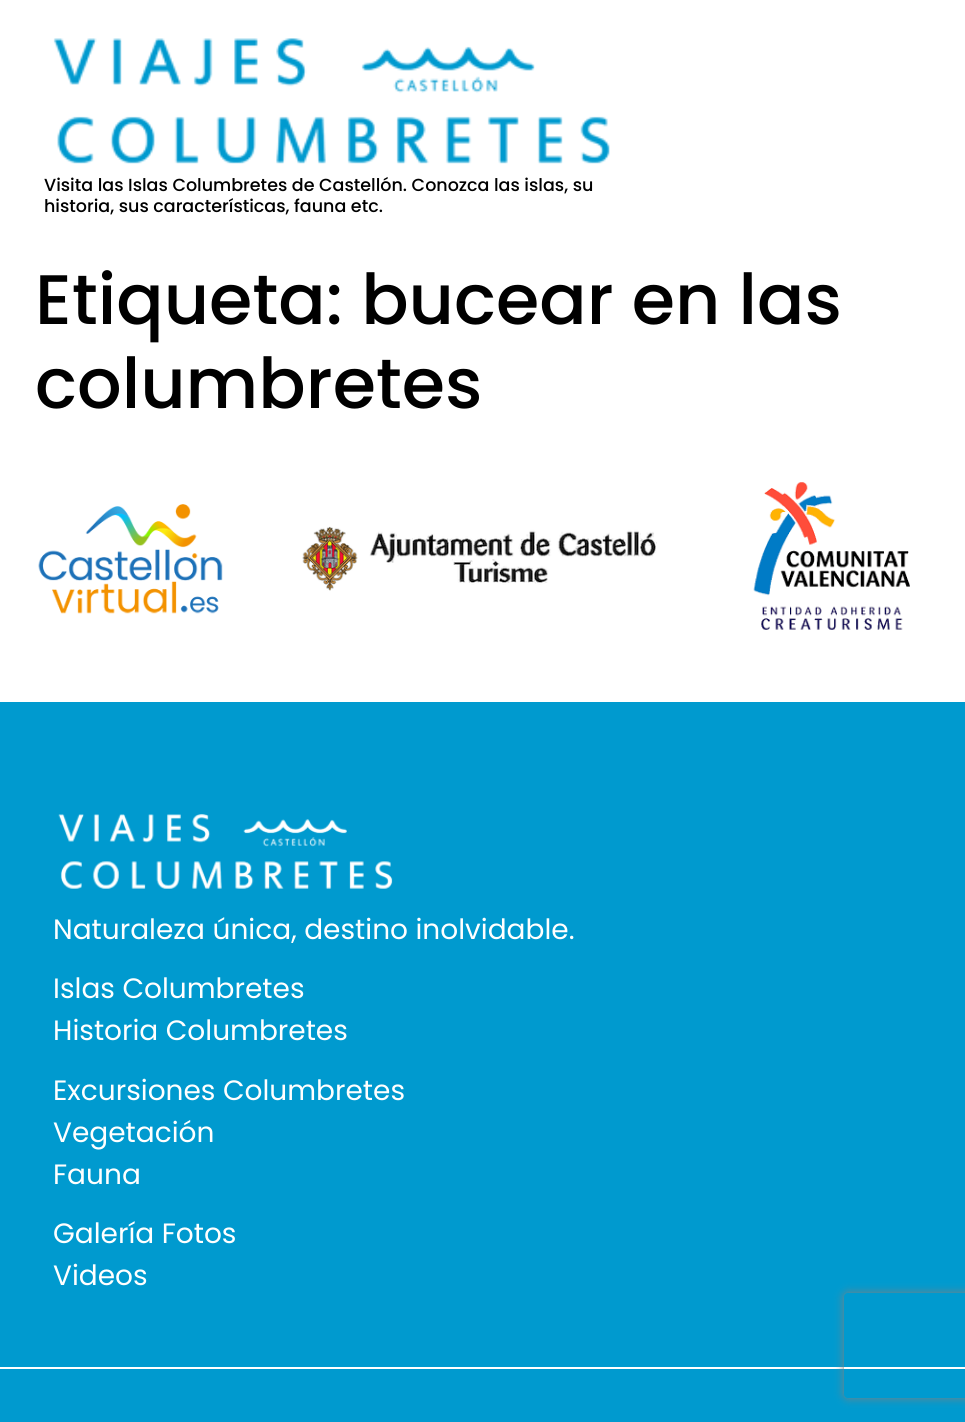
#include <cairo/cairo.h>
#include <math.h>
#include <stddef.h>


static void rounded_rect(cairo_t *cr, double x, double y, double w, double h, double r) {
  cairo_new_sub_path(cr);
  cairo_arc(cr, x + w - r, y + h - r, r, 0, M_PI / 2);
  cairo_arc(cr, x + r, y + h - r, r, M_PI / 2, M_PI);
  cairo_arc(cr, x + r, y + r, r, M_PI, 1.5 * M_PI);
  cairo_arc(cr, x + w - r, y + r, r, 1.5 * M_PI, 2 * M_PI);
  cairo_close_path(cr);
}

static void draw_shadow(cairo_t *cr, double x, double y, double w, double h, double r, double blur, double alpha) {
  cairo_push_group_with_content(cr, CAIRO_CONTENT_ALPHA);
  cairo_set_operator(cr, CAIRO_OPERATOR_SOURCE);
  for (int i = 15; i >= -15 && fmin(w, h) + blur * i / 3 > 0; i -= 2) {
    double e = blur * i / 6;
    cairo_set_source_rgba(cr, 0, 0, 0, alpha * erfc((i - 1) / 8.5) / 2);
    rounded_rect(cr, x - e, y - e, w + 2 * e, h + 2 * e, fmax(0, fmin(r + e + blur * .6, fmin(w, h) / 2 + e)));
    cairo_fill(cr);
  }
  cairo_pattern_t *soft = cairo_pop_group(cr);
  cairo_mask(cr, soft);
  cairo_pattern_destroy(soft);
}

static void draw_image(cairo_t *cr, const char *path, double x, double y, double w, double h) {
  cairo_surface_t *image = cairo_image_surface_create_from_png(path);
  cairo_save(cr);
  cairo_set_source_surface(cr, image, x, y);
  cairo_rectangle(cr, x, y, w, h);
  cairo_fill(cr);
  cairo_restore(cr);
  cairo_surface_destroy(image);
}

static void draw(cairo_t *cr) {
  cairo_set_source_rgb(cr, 1, 1, 1);
  cairo_paint(cr);
  draw_image(cr, "images/1.png", 53, 38, 557, 126);
  cairo_set_source_rgb(cr, 0, 154 / 255.0, 207 / 255.0);
  cairo_rectangle(cr, 0, 702, 965, 720);
  cairo_fill(cr);
  draw_image(cr, "images/2.png", 38, 504, 185, 110);
  draw_image(cr, "images/3.png", 302, 526, 355, 65);
  draw_image(cr, "images/4.png", 753, 482, 157, 148);
  cairo_set_source_rgb(cr, 1, 1, 1);
  cairo_rectangle(cr, 0, 1367, 965, 2);
  cairo_fill(cr);
  draw_image(cr, "images/5.png", 58, 814, 335, 75);
  cairo_save(cr);
  cairo_set_fill_rule(cr, CAIRO_FILL_RULE_EVEN_ODD);
  cairo_new_path(cr);
  cairo_move_to(cr, 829, 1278);
  cairo_line_to(cr, 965, 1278);
  cairo_line_to(cr, 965, 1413);
  cairo_line_to(cr, 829, 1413);
  cairo_close_path(cr);
  cairo_move_to(cr, 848, 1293);
  cairo_line_to(cr, 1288, 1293);
  cairo_curve_to(cr, 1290, 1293, 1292, 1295, 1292, 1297);
  cairo_line_to(cr, 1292, 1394);
  cairo_curve_to(cr, 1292, 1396, 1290, 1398, 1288, 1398);
  cairo_line_to(cr, 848, 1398);
  cairo_curve_to(cr, 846, 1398, 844, 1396, 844, 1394);
  cairo_line_to(cr, 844, 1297);
  cairo_curve_to(cr, 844, 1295, 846, 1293, 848, 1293);
  cairo_close_path(cr);
  cairo_clip(cr);
  cairo_set_source_rgb(cr, 128 / 255.0, 128 / 255.0, 128 / 255.0);
  draw_shadow(cr, 844, 1293, 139, 105, 4, 4.5, 1);
  cairo_restore(cr);
  cairo_select_font_face(cr, "Poppins Medium", CAIRO_FONT_SLANT_NORMAL, CAIRO_FONT_WEIGHT_NORMAL);
  cairo_set_font_size(cr, 17.5);
  cairo_set_source_rgb(cr, 0, 0, 0);
  cairo_move_to(cr, 44, 191);
  cairo_show_text(cr, "Visita las Islas Columbretes de Castellón. Conozca las islas, su");
  cairo_move_to(cr, 44, 212);
  cairo_show_text(cr, "historia, sus características, fauna etc.");
  cairo_set_font_size(cr, 70);
  cairo_move_to(cr, 35, 324);
  cairo_show_text(cr, "Etiqueta: bucear en las");
  cairo_move_to(cr, 35, 408);
  cairo_show_text(cr, "columbretes");
  cairo_select_font_face(cr, "Poppins", CAIRO_FONT_SLANT_NORMAL, CAIRO_FONT_WEIGHT_NORMAL);
  cairo_set_font_size(cr, 28);
  cairo_set_source_rgb(cr, 1, 1, 1);
  cairo_move_to(cr, 53, 939);
  cairo_show_text(cr, "Naturaleza única, destino inolvidable.");
  cairo_move_to(cr, 53, 998);
  cairo_show_text(cr, "Islas Columbretes");
  cairo_move_to(cr, 53, 1040);
  cairo_show_text(cr, "Historia Columbretes");
  cairo_move_to(cr, 53, 1100);
  cairo_show_text(cr, "Excursiones Columbretes");
  cairo_move_to(cr, 53, 1142);
  cairo_show_text(cr, "Vegetación");
  cairo_move_to(cr, 53, 1184);
  cairo_show_text(cr, "Fauna");
  cairo_move_to(cr, 53, 1243);
  cairo_show_text(cr, "Galería Fotos");
  cairo_move_to(cr, 53, 1285);
  cairo_show_text(cr, "Videos");
}

int main(void) {
  cairo_surface_t *surface = cairo_image_surface_create(CAIRO_FORMAT_RGB24, 965, 1422);
  cairo_t *cr = cairo_create(surface);
  cairo_font_options_t *options = cairo_font_options_create();
  cairo_font_options_set_hint_metrics(options, CAIRO_HINT_METRICS_OFF);
  cairo_font_options_set_hint_style(options, CAIRO_HINT_STYLE_NONE);
  cairo_set_font_options(cr, options);
  cairo_set_miter_limit(cr, 4);
  draw(cr);
  cairo_surface_write_to_png(surface, "out.png");
  cairo_font_options_destroy(options);
  cairo_destroy(cr);
  cairo_surface_destroy(surface);
  return 0;
}
